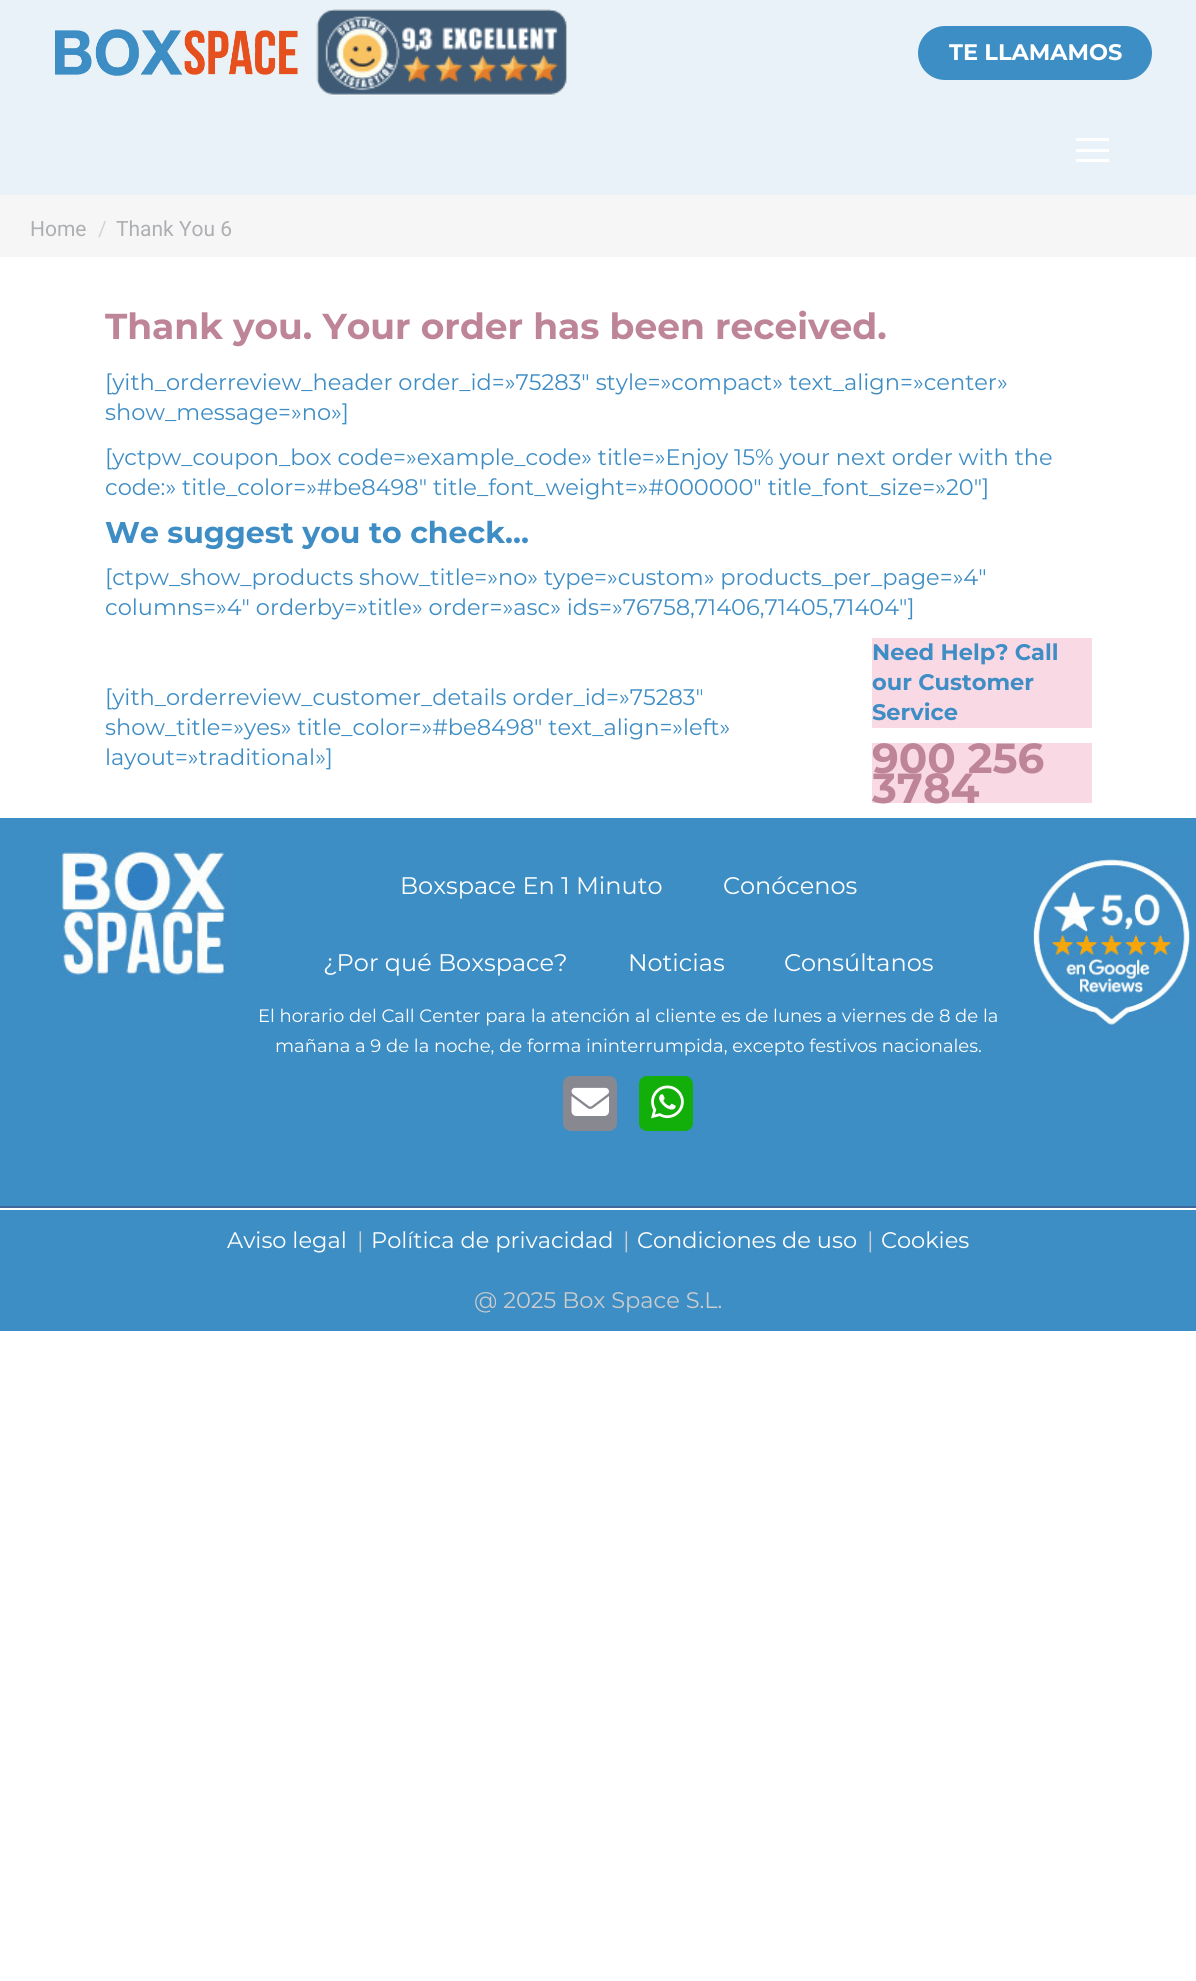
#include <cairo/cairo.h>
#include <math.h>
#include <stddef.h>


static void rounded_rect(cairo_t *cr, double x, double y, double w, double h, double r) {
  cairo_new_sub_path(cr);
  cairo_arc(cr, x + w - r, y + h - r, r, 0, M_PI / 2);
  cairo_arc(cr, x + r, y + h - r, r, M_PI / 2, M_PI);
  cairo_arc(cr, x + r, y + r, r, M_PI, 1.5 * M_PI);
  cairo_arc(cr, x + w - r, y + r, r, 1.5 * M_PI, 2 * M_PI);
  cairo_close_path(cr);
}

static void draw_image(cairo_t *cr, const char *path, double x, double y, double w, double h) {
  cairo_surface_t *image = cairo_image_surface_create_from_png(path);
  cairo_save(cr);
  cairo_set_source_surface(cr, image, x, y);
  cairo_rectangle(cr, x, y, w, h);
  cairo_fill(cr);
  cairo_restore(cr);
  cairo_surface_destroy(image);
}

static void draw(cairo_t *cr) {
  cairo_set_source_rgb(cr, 1, 1, 1);
  cairo_paint(cr);
  cairo_set_source_rgb(cr, 233 / 255.0, 242 / 255.0, 248 / 255.0);
  cairo_rectangle(cr, 0, 0, 1196, 195);
  cairo_fill(cr);
  draw_image(cr, "images/1.png", 55, 28, 244, 50);
  draw_image(cr, "images/2.png", 316, 9, 252, 87);
  cairo_set_source_rgb(cr, 61 / 255.0, 142 / 255.0, 197 / 255.0);
  rounded_rect(cr, 918, 26, 234, 54, 27);
  cairo_fill(cr);
  cairo_set_source_rgb(cr, 1, 1, 1);
  cairo_rectangle(cr, 1076, 138, 33, 3);
  cairo_fill(cr);
  cairo_rectangle(cr, 1076, 149, 33, 3);
  cairo_fill(cr);
  cairo_rectangle(cr, 1076, 159, 33, 3);
  cairo_fill(cr);
  cairo_set_source_rgb(cr, 246 / 255.0, 246 / 255.0, 246 / 255.0);
  cairo_rectangle(cr, 0, 195, 1196, 62);
  cairo_fill(cr);
  cairo_set_source_rgb(cr, 249 / 255.0, 217 / 255.0, 228 / 255.0);
  cairo_rectangle(cr, 872, 638, 220, 90);
  cairo_fill(cr);
  cairo_rectangle(cr, 872, 743, 220, 60);
  cairo_fill(cr);
  cairo_set_source_rgb(cr, 61 / 255.0, 142 / 255.0, 197 / 255.0);
  cairo_rectangle(cr, 0, 818, 1196, 513);
  cairo_fill(cr);
  draw_image(cr, "images/3.png", 60, 847, 171, 132);
  cairo_set_source_rgb(cr, 136 / 255.0, 137 / 255.0, 144 / 255.0);
  rounded_rect(cr, 563, 1076, 54, 55, 8);
  cairo_fill(cr);
  draw_image(cr, "images/4.png", 571, 1087, 38, 29);
  cairo_set_source_rgb(cr, 18 / 255.0, 175 / 255.0, 10 / 255.0);
  rounded_rect(cr, 639, 1076, 54, 55, 8);
  cairo_fill(cr);
  draw_image(cr, "images/5.png", 651, 1085, 33, 34);
  draw_image(cr, "images/6.png", 1033, 855, 158, 174);
  cairo_set_source_rgb(cr, 68 / 255.0, 103 / 255.0, 155 / 255.0);
  cairo_rectangle(cr, 0, 1206, 1196, 2);
  cairo_fill(cr);
  cairo_set_source_rgb(cr, 1, 1, 1);
  cairo_rectangle(cr, 0, 1208, 1196, 2);
  cairo_fill(cr);
  cairo_select_font_face(cr, "Montserrat", CAIRO_FONT_SLANT_NORMAL, CAIRO_FONT_WEIGHT_BOLD);
  cairo_set_font_size(cr, 22.5);
  cairo_move_to(cr, 949, 60);
  cairo_show_text(cr, "TE LLAMAMOS");
  cairo_select_font_face(cr, "Roboto", CAIRO_FONT_SLANT_NORMAL, CAIRO_FONT_WEIGHT_NORMAL);
  cairo_set_font_size(cr, 21);
  cairo_set_source_rgb(cr, 173 / 255.0, 175 / 255.0, 179 / 255.0);
  cairo_move_to(cr, 30, 236);
  cairo_show_text(cr, "Home");
  cairo_set_source_rgb(cr, 210 / 255.0, 211 / 255.0, 213 / 255.0);
  cairo_move_to(cr, 98, 236);
  cairo_show_text(cr, "/");
  cairo_set_source_rgb(cr, 173 / 255.0, 175 / 255.0, 179 / 255.0);
  cairo_move_to(cr, 116, 236);
  cairo_show_text(cr, "Thank You 6");
  cairo_select_font_face(cr, "Montserrat", CAIRO_FONT_SLANT_NORMAL, CAIRO_FONT_WEIGHT_BOLD);
  cairo_set_font_size(cr, 36);
  cairo_set_source_rgb(cr, 190 / 255.0, 132 / 255.0, 152 / 255.0);
  cairo_move_to(cr, 105, 339);
  cairo_show_text(cr, "Thank you. Your order has been received.");
  cairo_select_font_face(cr, "Montserrat", CAIRO_FONT_SLANT_NORMAL, CAIRO_FONT_WEIGHT_NORMAL);
  cairo_set_font_size(cr, 22.5);
  cairo_set_source_rgb(cr, 62 / 255.0, 141 / 255.0, 197 / 255.0);
  cairo_move_to(cr, 105, 390);
  cairo_show_text(cr, "[yith_orderreview_header order_id=»75283″ style=»compact» text_align=»center»");
  cairo_move_to(cr, 105, 420);
  cairo_show_text(cr, "show_message=»no»]");
  cairo_move_to(cr, 105, 465);
  cairo_show_text(cr, "[yctpw_coupon_box code=»example_code» title=»Enjoy 15% your next order with the");
  cairo_move_to(cr, 105, 495);
  cairo_show_text(cr, "code:» title_color=»#be8498″ title_font_weight=»#000000″ title_font_size=»20″]");
  cairo_select_font_face(cr, "Montserrat", CAIRO_FONT_SLANT_NORMAL, CAIRO_FONT_WEIGHT_BOLD);
  cairo_set_font_size(cr, 30);
  cairo_move_to(cr, 105, 543);
  cairo_show_text(cr, "We suggest you to check…");
  cairo_select_font_face(cr, "Montserrat", CAIRO_FONT_SLANT_NORMAL, CAIRO_FONT_WEIGHT_NORMAL);
  cairo_set_font_size(cr, 22.5);
  cairo_move_to(cr, 105, 585);
  cairo_show_text(cr, "[ctpw_show_products show_title=»no» type=»custom» products_per_page=»4″");
  cairo_move_to(cr, 105, 615);
  cairo_show_text(cr, "columns=»4″ orderby=»title» order=»asc» ids=»76758,71406,71405,71404″]");
  cairo_move_to(cr, 105, 705);
  cairo_show_text(cr, "[yith_orderreview_customer_details order_id=»75283″");
  cairo_move_to(cr, 105, 735);
  cairo_show_text(cr, "show_title=»yes» title_color=»#be8498″ text_align=»left»");
  cairo_move_to(cr, 105, 765);
  cairo_show_text(cr, "layout=»traditional»]");
  cairo_select_font_face(cr, "Montserrat", CAIRO_FONT_SLANT_NORMAL, CAIRO_FONT_WEIGHT_BOLD);
  cairo_move_to(cr, 872, 660);
  cairo_show_text(cr, "Need Help? Call");
  cairo_move_to(cr, 872, 690);
  cairo_show_text(cr, "our Customer");
  cairo_move_to(cr, 872, 720);
  cairo_show_text(cr, "Service");
  cairo_set_font_size(cr, 42);
  cairo_set_source_rgb(cr, 190 / 255.0, 132 / 255.0, 152 / 255.0);
  cairo_move_to(cr, 872, 773);
  cairo_show_text(cr, "900 256");
  cairo_move_to(cr, 872, 803);
  cairo_show_text(cr, "3784");
  cairo_select_font_face(cr, "Montserrat", CAIRO_FONT_SLANT_NORMAL, CAIRO_FONT_WEIGHT_NORMAL);
  cairo_set_font_size(cr, 24);
  cairo_set_source_rgb(cr, 1, 1, 1);
  cairo_move_to(cr, 400, 894);
  cairo_show_text(cr, "Boxspace En 1 Minuto");
  cairo_move_to(cr, 723, 894);
  cairo_show_text(cr, "Conócenos");
  cairo_move_to(cr, 323, 971);
  cairo_show_text(cr, "¿Por qué Boxspace?");
  cairo_move_to(cr, 628, 971);
  cairo_show_text(cr, "Noticias");
  cairo_move_to(cr, 784, 971);
  cairo_show_text(cr, "Consúltanos");
  cairo_set_font_size(cr, 18);
  cairo_move_to(cr, 258, 1022);
  cairo_show_text(cr, "El horario del Call Center para la atención al cliente es de lunes a viernes de 8 de la");
  cairo_move_to(cr, 275, 1052);
  cairo_show_text(cr, "mañana a 9 de la noche, de forma ininterrumpida, excepto festivos nacionales.");
  cairo_set_font_size(cr, 22.5);
  cairo_move_to(cr, 227, 1248);
  cairo_show_text(cr, "Aviso legal");
  cairo_set_source_rgb(cr, 204 / 255.0, 204 / 255.0, 204 / 255.0);
  cairo_move_to(cr, 357, 1248);
  cairo_show_text(cr, "|");
  cairo_set_source_rgb(cr, 1, 1, 1);
  cairo_move_to(cr, 371, 1248);
  cairo_show_text(cr, "Política de privacidad");
  cairo_set_source_rgb(cr, 204 / 255.0, 204 / 255.0, 204 / 255.0);
  cairo_move_to(cr, 623, 1248);
  cairo_show_text(cr, "|");
  cairo_set_source_rgb(cr, 1, 1, 1);
  cairo_move_to(cr, 637, 1248);
  cairo_show_text(cr, "Condiciones de uso");
  cairo_set_source_rgb(cr, 204 / 255.0, 204 / 255.0, 204 / 255.0);
  cairo_move_to(cr, 867, 1248);
  cairo_show_text(cr, "|");
  cairo_set_source_rgb(cr, 1, 1, 1);
  cairo_move_to(cr, 881, 1248);
  cairo_show_text(cr, "Cookies");
  cairo_set_source_rgb(cr, 204 / 255.0, 204 / 255.0, 204 / 255.0);
  cairo_move_to(cr, 474, 1308);
  cairo_show_text(cr, "@ 2025 Box Space S.L.");
}

int main(void) {
  cairo_surface_t *surface = cairo_image_surface_create(CAIRO_FORMAT_RGB24, 1196, 1981);
  cairo_t *cr = cairo_create(surface);
  cairo_font_options_t *options = cairo_font_options_create();
  cairo_font_options_set_hint_metrics(options, CAIRO_HINT_METRICS_OFF);
  cairo_font_options_set_hint_style(options, CAIRO_HINT_STYLE_NONE);
  cairo_set_font_options(cr, options);
  cairo_set_miter_limit(cr, 4);
  draw(cr);
  cairo_surface_write_to_png(surface, "out.png");
  cairo_font_options_destroy(options);
  cairo_destroy(cr);
  cairo_surface_destroy(surface);
  return 0;
}
